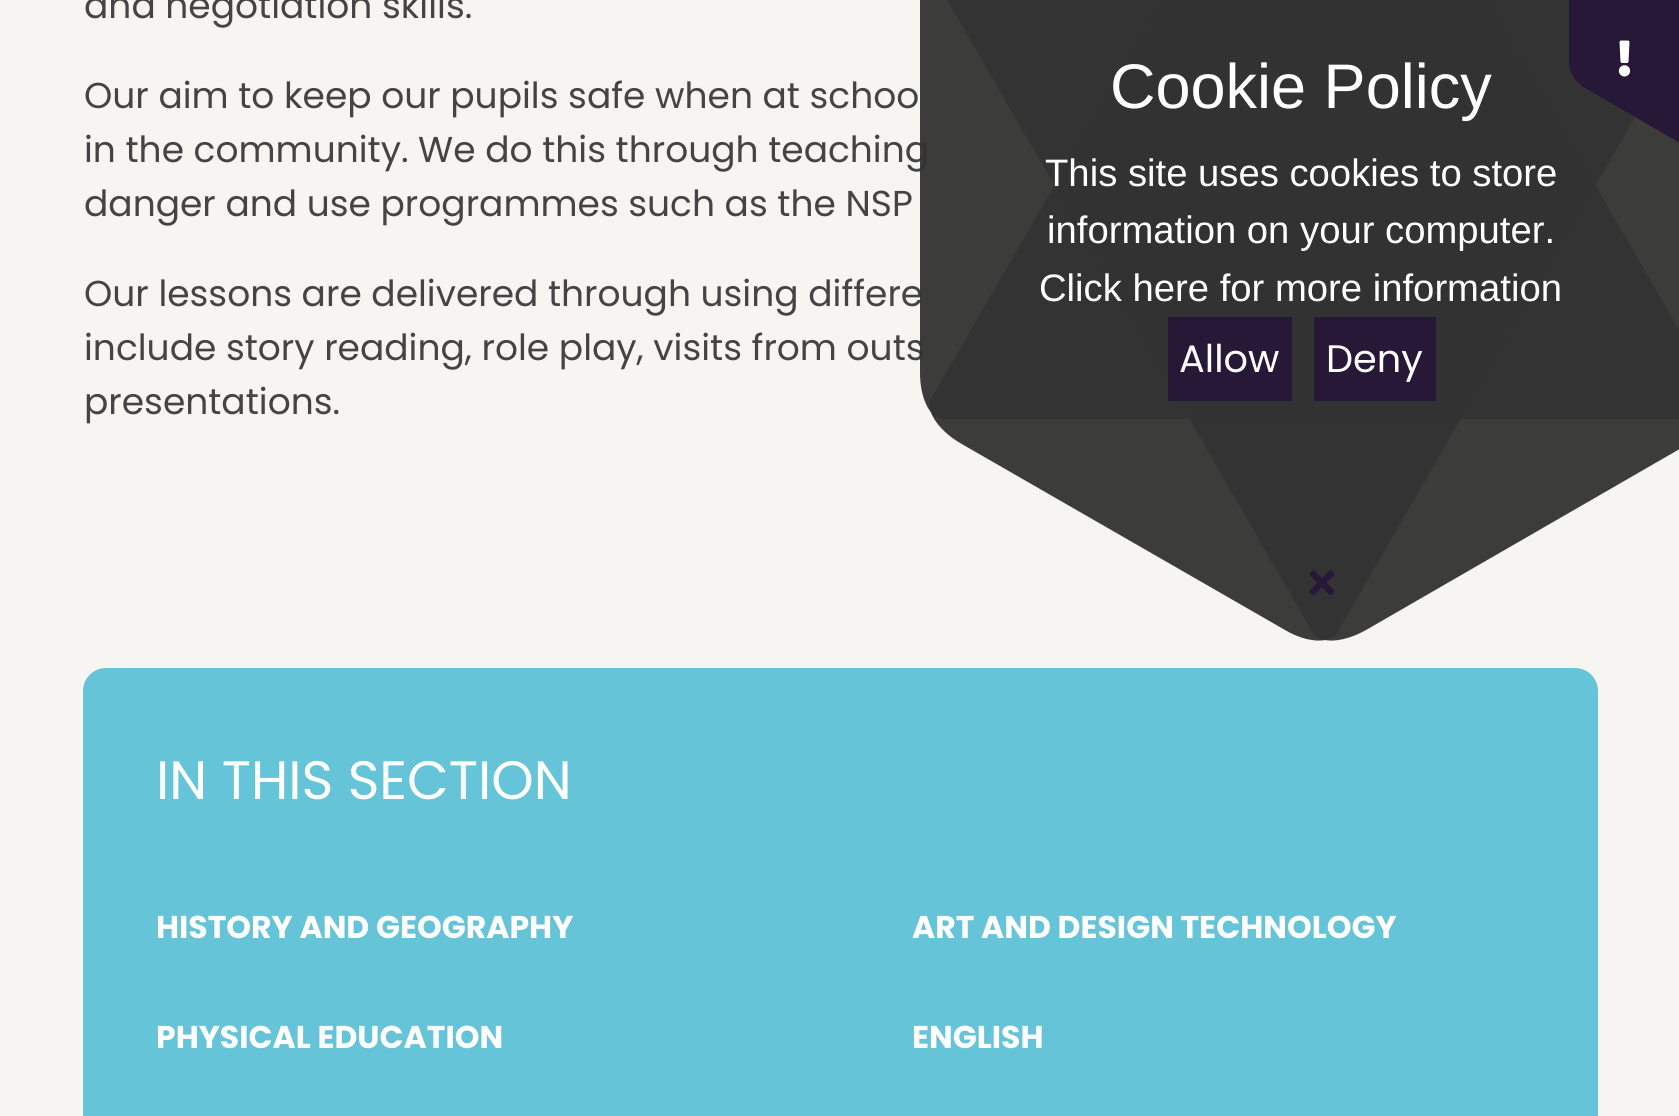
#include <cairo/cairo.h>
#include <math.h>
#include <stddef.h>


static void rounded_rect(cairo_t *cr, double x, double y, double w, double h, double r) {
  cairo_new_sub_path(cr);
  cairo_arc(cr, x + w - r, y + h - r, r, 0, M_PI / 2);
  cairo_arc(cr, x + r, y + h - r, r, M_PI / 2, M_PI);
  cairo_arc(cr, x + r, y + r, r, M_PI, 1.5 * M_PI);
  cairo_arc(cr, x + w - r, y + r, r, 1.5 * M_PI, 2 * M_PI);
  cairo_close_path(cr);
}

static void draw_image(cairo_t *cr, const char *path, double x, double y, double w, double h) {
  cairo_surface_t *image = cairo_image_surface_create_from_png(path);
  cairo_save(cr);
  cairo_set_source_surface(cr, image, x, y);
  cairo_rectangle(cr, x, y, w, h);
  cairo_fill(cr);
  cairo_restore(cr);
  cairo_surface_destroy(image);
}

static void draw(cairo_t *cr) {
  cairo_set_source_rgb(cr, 247 / 255.0, 245 / 255.0, 242 / 255.0);
  cairo_paint(cr);
  cairo_set_source_rgb(cr, 102 / 255.0, 196 / 255.0, 217 / 255.0);
  rounded_rect(cr, 83, 668, 1515, 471, 23);
  cairo_fill(cr);
  cairo_select_font_face(cr, "Poppins", CAIRO_FONT_SLANT_NORMAL, CAIRO_FONT_WEIGHT_NORMAL);
  cairo_set_font_size(cr, 36);
  cairo_set_source_rgb(cr, 68 / 255.0, 68 / 255.0, 68 / 255.0);
  cairo_move_to(cr, 84, 18);
  cairo_show_text(cr, "and negotiation skills.");
  cairo_move_to(cr, 84, 108);
  cairo_show_text(cr, "Our aim to keep our pupils safe when at schoo");
  cairo_move_to(cr, 84, 162);
  cairo_show_text(cr, "in the community. We do this through teaching");
  cairo_move_to(cr, 84, 216);
  cairo_show_text(cr, "danger and use programmes such as the NSP");
  cairo_move_to(cr, 84, 306);
  cairo_show_text(cr, "Our lessons are delivered through using differe");
  cairo_move_to(cr, 84, 360);
  cairo_show_text(cr, "include story reading, role play, visits from outs");
  cairo_move_to(cr, 84, 414);
  cairo_show_text(cr, "presentations.");
  cairo_set_font_size(cr, 54);
  cairo_set_source_rgb(cr, 1, 1, 1);
  cairo_move_to(cr, 156, 799);
  cairo_show_text(cr, "IN THIS SECTION");
  cairo_select_font_face(cr, "Poppins", CAIRO_FONT_SLANT_NORMAL, CAIRO_FONT_WEIGHT_BOLD);
  cairo_set_font_size(cr, 31.5);
  cairo_move_to(cr, 156, 938);
  cairo_show_text(cr, "HISTORY AND GEOGRAPHY");
  cairo_move_to(cr, 912, 938);
  cairo_show_text(cr, "ART AND DESIGN TECHNOLOGY");
  cairo_move_to(cr, 156, 1048);
  cairo_show_text(cr, "PHYSICAL EDUCATION");
  cairo_move_to(cr, 912, 1048);
  cairo_show_text(cr, "ENGLISH");
  cairo_set_source_rgba(cr, 51 / 255.0, 51 / 255.0, 51 / 255.0, 0.95);
  cairo_new_path(cr);
  cairo_move_to(cr, 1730, -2);
  cairo_line_to(cr, 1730, 373);
  cairo_curve_to(cr, 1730, 398, 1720, 419, 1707, 419);
  cairo_line_to(cr, 943, 419);
  cairo_curve_to(cr, 930, 419, 920, 398, 920, 373);
  cairo_line_to(cr, 920, -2);
  cairo_curve_to(cr, 920, -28, 930, -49, 943, -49);
  cairo_line_to(cr, 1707, -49);
  cairo_curve_to(cr, 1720, -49, 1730, -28, 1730, -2);
  cairo_close_path(cr);
  cairo_fill(cr);
  cairo_new_path(cr);
  cairo_move_to(cr, 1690, 443);
  cairo_line_to(cr, 1366, 630);
  cairo_curve_to(cr, 1343, 643, 1320, 644, 1313, 633);
  cairo_line_to(cr, 931, -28);
  cairo_curve_to(cr, 925, -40, 938, -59, 960, -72);
  cairo_line_to(cr, 1285, -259);
  cairo_curve_to(cr, 1307, -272, 1330, -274, 1337, -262);
  cairo_line_to(cr, 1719, 399);
  cairo_curve_to(cr, 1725, 410, 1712, 430, 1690, 443);
  cairo_close_path(cr);
  cairo_fill(cr);
  cairo_new_path(cr);
  cairo_move_to(cr, 1366, -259);
  cairo_line_to(cr, 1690, -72);
  cairo_curve_to(cr, 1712, -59, 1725, -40, 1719, -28);
  cairo_line_to(cr, 1337, 633);
  cairo_curve_to(cr, 1330, 644, 1307, 643, 1285, 630);
  cairo_line_to(cr, 960, 443);
  cairo_curve_to(cr, 938, 430, 925, 410, 931, 399);
  cairo_line_to(cr, 1313, -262);
  cairo_curve_to(cr, 1320, -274, 1343, -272, 1366, -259);
  cairo_close_path(cr);
  cairo_fill(cr);
  cairo_select_font_face(cr, "Liberation Sans", CAIRO_FONT_SLANT_NORMAL, CAIRO_FONT_WEIGHT_NORMAL);
  cairo_set_font_size(cr, 63);
  cairo_set_source_rgb(cr, 1, 1, 1);
  cairo_move_to(cr, 1110, 108);
  cairo_show_text(cr, "Cookie Policy");
  cairo_set_font_size(cr, 38.25);
  cairo_move_to(cr, 1045, 186);
  cairo_show_text(cr, "This site uses cookies to store");
  cairo_move_to(cr, 1047, 243);
  cairo_show_text(cr, "information on your computer.");
  cairo_move_to(cr, 1039, 301);
  cairo_show_text(cr, "Click here for more information");
  cairo_set_source_rgb(cr, 40 / 255.0, 24 / 255.0, 56 / 255.0);
  cairo_rectangle(cr, 1168, 317, 124, 84);
  cairo_fill(cr);
  cairo_select_font_face(cr, "Poppins", CAIRO_FONT_SLANT_NORMAL, CAIRO_FONT_WEIGHT_NORMAL);
  cairo_set_source_rgb(cr, 1, 1, 1);
  cairo_move_to(cr, 1179, 372);
  cairo_show_text(cr, "Allow");
  cairo_set_source_rgb(cr, 40 / 255.0, 24 / 255.0, 56 / 255.0);
  cairo_rectangle(cr, 1314, 317, 122, 84);
  cairo_fill(cr);
  cairo_set_source_rgb(cr, 1, 1, 1);
  cairo_move_to(cr, 1326, 372);
  cairo_show_text(cr, "Deny");
  draw_image(cr, "images/1.png", 1309, 570, 26, 25);
  cairo_set_source_rgb(cr, 40 / 255.0, 24 / 255.0, 56 / 255.0);
  cairo_new_path(cr);
  cairo_move_to(cr, 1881, -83);
  cairo_line_to(cr, 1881, 61);
  cairo_curve_to(cr, 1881, 71, 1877, 79, 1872, 79);
  cairo_line_to(cr, 1578, 79);
  cairo_curve_to(cr, 1573, 79, 1569, 71, 1569, 61);
  cairo_line_to(cr, 1569, -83);
  cairo_curve_to(cr, 1569, -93, 1573, -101, 1578, -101);
  cairo_line_to(cr, 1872, -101);
  cairo_curve_to(cr, 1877, -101, 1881, -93, 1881, -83);
  cairo_close_path(cr);
  cairo_fill(cr);
  cairo_new_path(cr);
  cairo_move_to(cr, 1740, -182);
  cairo_line_to(cr, 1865, -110);
  cairo_curve_to(cr, 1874, -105, 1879, -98, 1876, -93);
  cairo_line_to(cr, 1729, 161);
  cairo_curve_to(cr, 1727, 165, 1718, 165, 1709, 160);
  cairo_line_to(cr, 1585, 88);
  cairo_curve_to(cr, 1576, 83, 1571, 75, 1573, 71);
  cairo_line_to(cr, 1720, -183);
  cairo_curve_to(cr, 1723, -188, 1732, -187, 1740, -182);
  cairo_close_path(cr);
  cairo_fill(cr);
  draw_image(cr, "images/2.png", 1618, 40, 13, 37);
}

int main(void) {
  cairo_surface_t *surface = cairo_image_surface_create(CAIRO_FORMAT_RGB24, 1679, 1116);
  cairo_t *cr = cairo_create(surface);
  cairo_font_options_t *options = cairo_font_options_create();
  cairo_font_options_set_hint_metrics(options, CAIRO_HINT_METRICS_OFF);
  cairo_font_options_set_hint_style(options, CAIRO_HINT_STYLE_NONE);
  cairo_set_font_options(cr, options);
  cairo_set_miter_limit(cr, 4);
  draw(cr);
  cairo_surface_write_to_png(surface, "out.png");
  cairo_font_options_destroy(options);
  cairo_destroy(cr);
  cairo_surface_destroy(surface);
  return 0;
}
